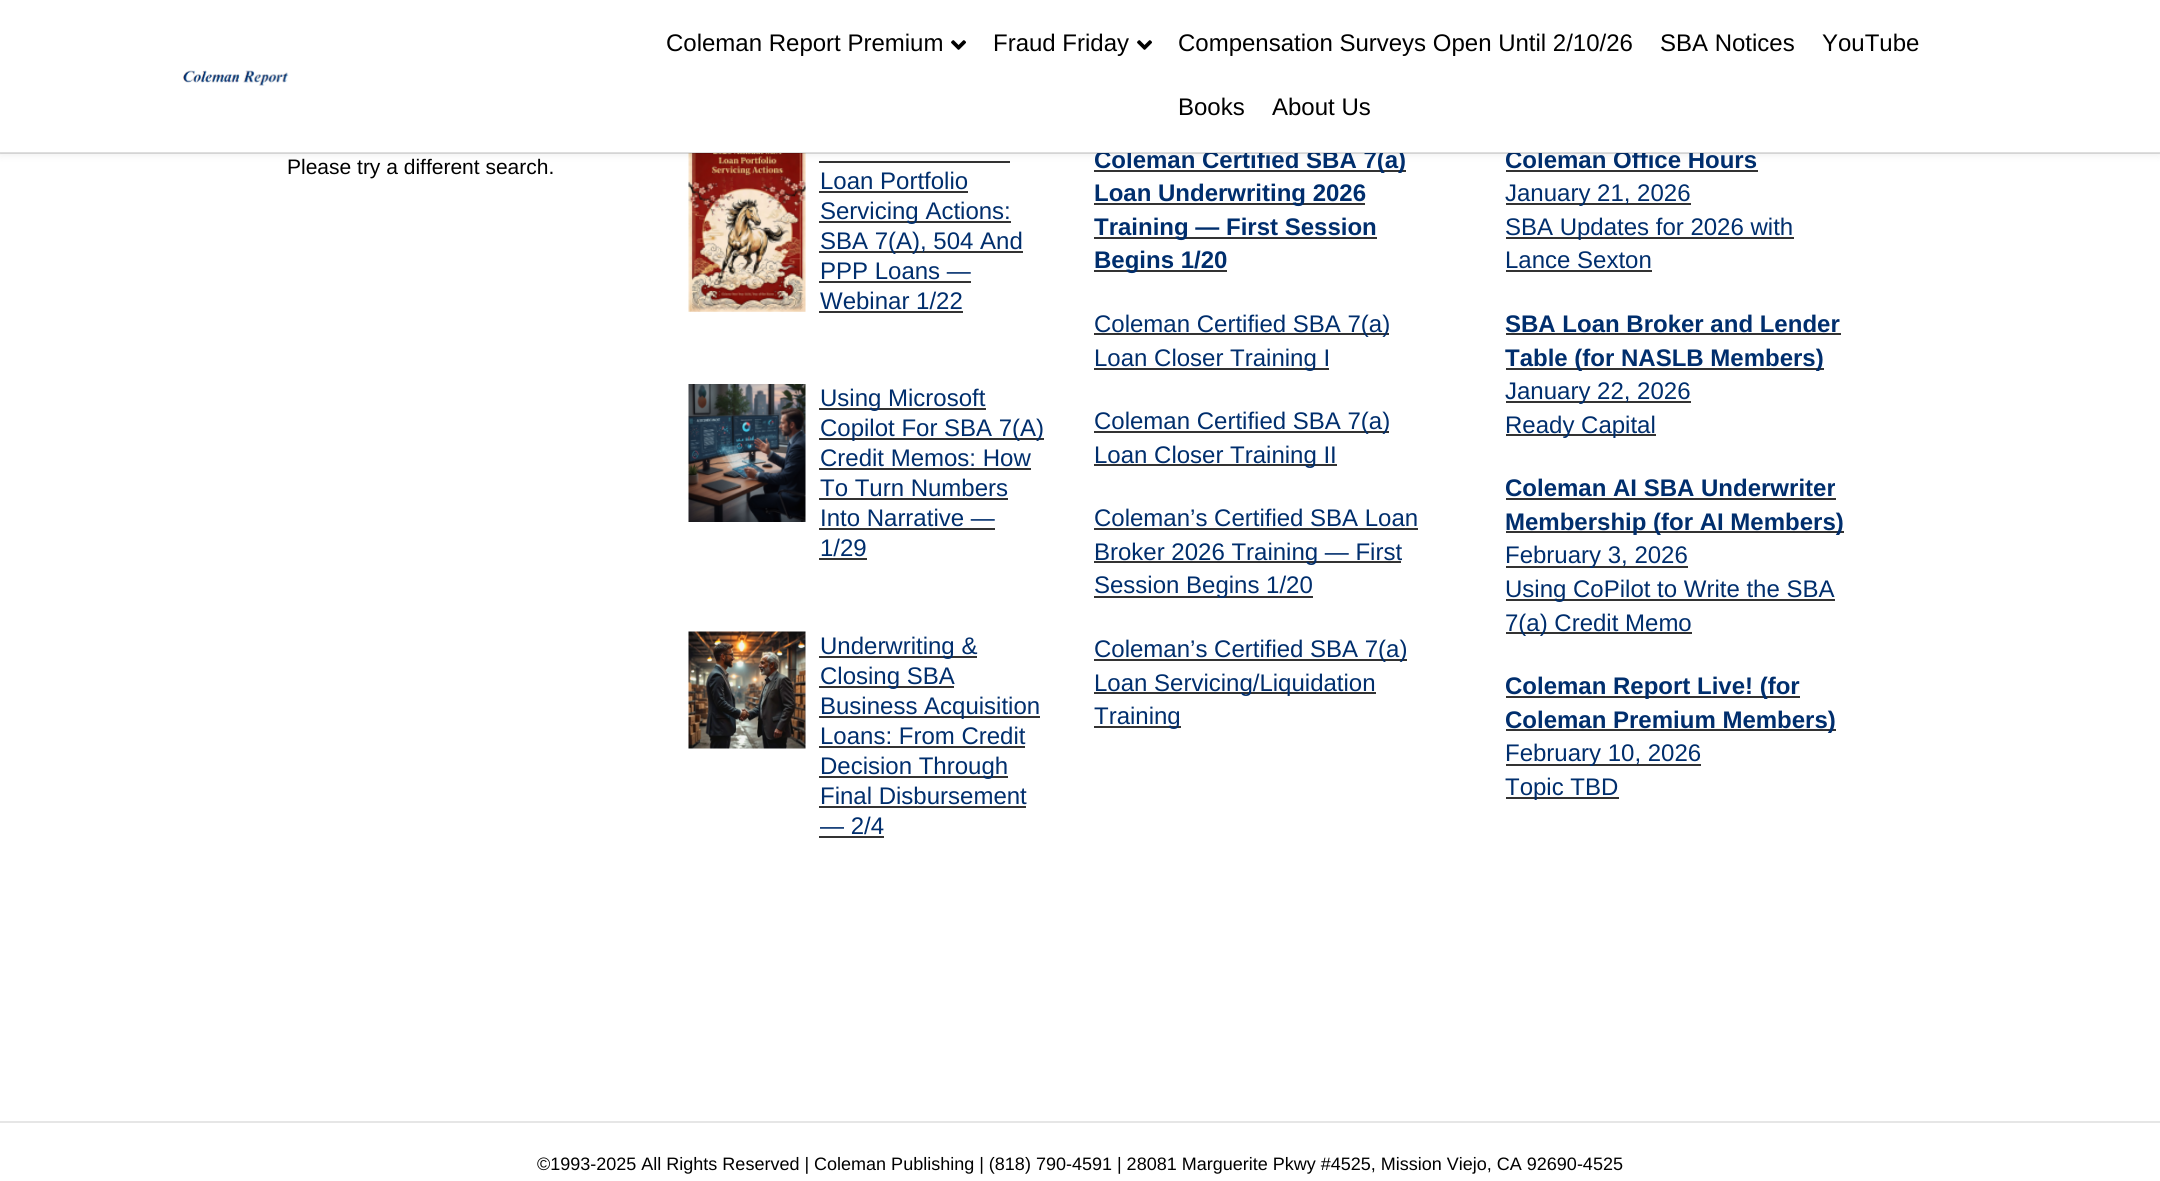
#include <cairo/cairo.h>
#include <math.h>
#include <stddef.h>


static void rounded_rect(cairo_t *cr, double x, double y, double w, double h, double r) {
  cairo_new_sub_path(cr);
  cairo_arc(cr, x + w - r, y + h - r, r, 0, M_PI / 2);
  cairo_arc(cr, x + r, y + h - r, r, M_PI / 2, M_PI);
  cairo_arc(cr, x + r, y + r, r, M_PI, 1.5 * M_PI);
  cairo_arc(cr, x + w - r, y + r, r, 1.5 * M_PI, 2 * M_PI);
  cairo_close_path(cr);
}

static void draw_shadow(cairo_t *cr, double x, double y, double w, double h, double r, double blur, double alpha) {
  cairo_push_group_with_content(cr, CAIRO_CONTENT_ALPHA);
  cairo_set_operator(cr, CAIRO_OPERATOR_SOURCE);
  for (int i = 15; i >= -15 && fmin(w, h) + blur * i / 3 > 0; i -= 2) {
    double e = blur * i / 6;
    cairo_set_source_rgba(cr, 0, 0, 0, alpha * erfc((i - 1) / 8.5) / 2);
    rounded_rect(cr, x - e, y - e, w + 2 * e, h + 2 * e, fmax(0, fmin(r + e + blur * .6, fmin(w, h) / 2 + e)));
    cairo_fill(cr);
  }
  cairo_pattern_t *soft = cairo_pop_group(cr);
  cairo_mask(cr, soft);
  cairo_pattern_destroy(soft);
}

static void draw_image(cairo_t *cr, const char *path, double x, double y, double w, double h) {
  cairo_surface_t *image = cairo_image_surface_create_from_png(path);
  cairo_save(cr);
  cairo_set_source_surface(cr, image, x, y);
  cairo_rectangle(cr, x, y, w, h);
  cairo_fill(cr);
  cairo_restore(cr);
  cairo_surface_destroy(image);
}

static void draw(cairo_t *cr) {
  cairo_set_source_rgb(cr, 1, 1, 1);
  cairo_paint(cr);
  draw_image(cr, "images/3.png", 688, 153, 118, 159);
  cairo_set_source_rgb(cr, 51 / 255.0, 51 / 255.0, 51 / 255.0);
  cairo_rectangle(cr, 819, 161, 191, 2);
  cairo_fill(cr);
  cairo_set_source_rgb(cr, 0, 0, 0);
  draw_shadow(cr, 0, 0, 2160, 153, 0, 5, 0.1);
  cairo_set_source_rgb(cr, 51 / 255.0, 51 / 255.0, 51 / 255.0);
  cairo_rectangle(cr, 1094, 170, 312, 2);
  cairo_fill(cr);
  cairo_rectangle(cr, 1094, 203, 271, 2);
  cairo_fill(cr);
  cairo_rectangle(cr, 1094, 237, 283, 2);
  cairo_fill(cr);
  cairo_rectangle(cr, 1094, 270, 133, 2);
  cairo_fill(cr);
  cairo_rectangle(cr, 1094, 333, 295, 2);
  cairo_fill(cr);
  cairo_rectangle(cr, 1094, 368, 235, 2);
  cairo_fill(cr);
  cairo_rectangle(cr, 1094, 431, 295, 2);
  cairo_fill(cr);
  cairo_rectangle(cr, 1094, 464, 243, 2);
  cairo_fill(cr);
  cairo_rectangle(cr, 1094, 528, 324, 2);
  cairo_fill(cr);
  cairo_rectangle(cr, 1094, 561, 307, 2);
  cairo_fill(cr);
  cairo_rectangle(cr, 1094, 596, 219, 2);
  cairo_fill(cr);
  cairo_rectangle(cr, 1094, 659, 313, 2);
  cairo_fill(cr);
  cairo_rectangle(cr, 1094, 692, 282, 2);
  cairo_fill(cr);
  cairo_rectangle(cr, 1094, 726, 87, 2);
  cairo_fill(cr);
  cairo_rectangle(cr, 1506, 170, 252, 2);
  cairo_fill(cr);
  cairo_rectangle(cr, 1506, 203, 185, 2);
  cairo_fill(cr);
  cairo_rectangle(cr, 1506, 237, 288, 2);
  cairo_fill(cr);
  cairo_rectangle(cr, 1506, 270, 146, 2);
  cairo_fill(cr);
  cairo_rectangle(cr, 1506, 333, 335, 2);
  cairo_fill(cr);
  cairo_rectangle(cr, 1506, 368, 318, 2);
  cairo_fill(cr);
  cairo_rectangle(cr, 1506, 401, 185, 2);
  cairo_fill(cr);
  cairo_rectangle(cr, 1506, 434, 150, 2);
  cairo_fill(cr);
  cairo_rectangle(cr, 1506, 498, 330, 2);
  cairo_fill(cr);
  cairo_rectangle(cr, 1506, 531, 338, 2);
  cairo_fill(cr);
  cairo_rectangle(cr, 1506, 566, 182, 2);
  cairo_fill(cr);
  cairo_rectangle(cr, 1506, 599, 329, 2);
  cairo_fill(cr);
  cairo_rectangle(cr, 1506, 632, 186, 2);
  cairo_fill(cr);
  cairo_rectangle(cr, 1506, 696, 294, 2);
  cairo_fill(cr);
  cairo_rectangle(cr, 1506, 729, 330, 2);
  cairo_fill(cr);
  cairo_rectangle(cr, 1506, 764, 195, 2);
  cairo_fill(cr);
  cairo_rectangle(cr, 1506, 797, 113, 2);
  cairo_fill(cr);
  cairo_rectangle(cr, 819, 191, 149, 2);
  cairo_fill(cr);
  cairo_rectangle(cr, 819, 221, 192, 2);
  cairo_fill(cr);
  cairo_rectangle(cr, 819, 251, 204, 2);
  cairo_fill(cr);
  cairo_rectangle(cr, 819, 281, 152, 2);
  cairo_fill(cr);
  cairo_rectangle(cr, 819, 311, 144, 2);
  cairo_fill(cr);
  draw_image(cr, "images/4.png", 688, 384, 118, 138);
  cairo_rectangle(cr, 819, 408, 167, 2);
  cairo_fill(cr);
  cairo_rectangle(cr, 819, 438, 225, 2);
  cairo_fill(cr);
  cairo_rectangle(cr, 819, 468, 212, 2);
  cairo_fill(cr);
  cairo_rectangle(cr, 819, 498, 189, 2);
  cairo_fill(cr);
  cairo_rectangle(cr, 819, 528, 176, 2);
  cairo_fill(cr);
  cairo_rectangle(cr, 819, 558, 48, 2);
  cairo_fill(cr);
  draw_image(cr, "images/5.png", 688, 631, 118, 118);
  cairo_rectangle(cr, 819, 656, 158, 2);
  cairo_fill(cr);
  cairo_rectangle(cr, 819, 686, 135, 2);
  cairo_fill(cr);
  cairo_rectangle(cr, 819, 716, 221, 2);
  cairo_fill(cr);
  cairo_rectangle(cr, 819, 746, 206, 2);
  cairo_fill(cr);
  cairo_rectangle(cr, 819, 776, 189, 2);
  cairo_fill(cr);
  cairo_rectangle(cr, 819, 806, 207, 2);
  cairo_fill(cr);
  cairo_rectangle(cr, 819, 836, 65, 2);
  cairo_fill(cr);
  cairo_set_source_rgb(cr, 230 / 255.0, 230 / 255.0, 230 / 255.0);
  cairo_rectangle(cr, 0, 1121, 2160, 2);
  cairo_fill(cr);
  cairo_select_font_face(cr, "Liberation Sans", CAIRO_FONT_SLANT_NORMAL, CAIRO_FONT_WEIGHT_NORMAL);
  cairo_set_font_size(cr, 21);
  cairo_set_source_rgb(cr, 0, 0, 0);
  cairo_move_to(cr, 287, 174);
  cairo_show_text(cr, "Please try a different search.");
  cairo_select_font_face(cr, "Liberation Sans", CAIRO_FONT_SLANT_NORMAL, CAIRO_FONT_WEIGHT_BOLD);
  cairo_set_font_size(cr, 24);
  cairo_set_source_rgb(cr, 0, 46 / 255.0, 109 / 255.0);
  cairo_move_to(cr, 1094, 168);
  cairo_show_text(cr, "Coleman Certified SBA 7(a)");
  cairo_move_to(cr, 1094, 201);
  cairo_show_text(cr, "Loan Underwriting 2026");
  cairo_move_to(cr, 1094, 235);
  cairo_show_text(cr, "Training — First Session");
  cairo_move_to(cr, 1094, 268);
  cairo_show_text(cr, "Begins 1/20");
  cairo_select_font_face(cr, "Liberation Sans", CAIRO_FONT_SLANT_NORMAL, CAIRO_FONT_WEIGHT_NORMAL);
  cairo_move_to(cr, 1094, 332);
  cairo_show_text(cr, "Coleman Certified SBA 7(a)");
  cairo_move_to(cr, 1094, 366);
  cairo_show_text(cr, "Loan Closer Training I");
  cairo_move_to(cr, 1094, 429);
  cairo_show_text(cr, "Coleman Certified SBA 7(a)");
  cairo_move_to(cr, 1094, 463);
  cairo_show_text(cr, "Loan Closer Training II");
  cairo_move_to(cr, 1094, 526);
  cairo_show_text(cr, "Coleman’s Certified SBA Loan");
  cairo_move_to(cr, 1094, 560);
  cairo_show_text(cr, "Broker 2026 Training — First");
  cairo_move_to(cr, 1094, 593);
  cairo_show_text(cr, "Session Begins 1/20");
  cairo_move_to(cr, 1094, 657);
  cairo_show_text(cr, "Coleman’s Certified SBA 7(a)");
  cairo_move_to(cr, 1094, 691);
  cairo_show_text(cr, "Loan Servicing/Liquidation");
  cairo_move_to(cr, 1094, 724);
  cairo_show_text(cr, "Training");
  cairo_select_font_face(cr, "Liberation Sans", CAIRO_FONT_SLANT_NORMAL, CAIRO_FONT_WEIGHT_BOLD);
  cairo_move_to(cr, 1505, 168);
  cairo_show_text(cr, "Coleman Office Hours");
  cairo_set_source_rgb(cr, 1, 1, 1);
  cairo_rectangle(cr, 0, 0, 2160, 153);
  cairo_fill(cr);
  cairo_select_font_face(cr, "Liberation Sans", CAIRO_FONT_SLANT_NORMAL, CAIRO_FONT_WEIGHT_NORMAL);
  cairo_set_source_rgb(cr, 0, 0, 0);
  cairo_move_to(cr, 1272, 115);
  cairo_show_text(cr, "About Us");
  cairo_move_to(cr, 1178, 115);
  cairo_show_text(cr, "Books");
  cairo_move_to(cr, 1822, 51);
  cairo_show_text(cr, "YouTube");
  cairo_move_to(cr, 1660, 51);
  cairo_show_text(cr, "SBA Notices");
  cairo_move_to(cr, 1178, 51);
  cairo_show_text(cr, "Compensation Surveys Open Until 2/10/26");
  draw_image(cr, "images/2.png", 1137, 40, 15, 10);
  cairo_move_to(cr, 993, 51);
  cairo_show_text(cr, "Fraud Friday");
  draw_image(cr, "images/2.png", 951, 40, 15, 10);
  cairo_move_to(cr, 666, 51);
  cairo_show_text(cr, "Coleman Report Premium");
  draw_image(cr, "images/1.png", 183, 70, 106, 16);
  cairo_set_source_rgba(cr, 0, 0, 0, 0.13);
  cairo_rectangle(cr, 0, 152, 2160, 2);
  cairo_fill(cr);
  cairo_set_source_rgb(cr, 0, 46 / 255.0, 109 / 255.0);
  cairo_move_to(cr, 1505, 201);
  cairo_show_text(cr, "January 21, 2026");
  cairo_move_to(cr, 1505, 235);
  cairo_show_text(cr, "SBA Updates for 2026 with");
  cairo_move_to(cr, 1505, 268);
  cairo_show_text(cr, "Lance Sexton");
  cairo_select_font_face(cr, "Liberation Sans", CAIRO_FONT_SLANT_NORMAL, CAIRO_FONT_WEIGHT_BOLD);
  cairo_move_to(cr, 1505, 332);
  cairo_show_text(cr, "SBA Loan Broker and Lender");
  cairo_move_to(cr, 1505, 366);
  cairo_show_text(cr, "Table (for NASLB Members)");
  cairo_select_font_face(cr, "Liberation Sans", CAIRO_FONT_SLANT_NORMAL, CAIRO_FONT_WEIGHT_NORMAL);
  cairo_move_to(cr, 1505, 399);
  cairo_show_text(cr, "January 22, 2026");
  cairo_move_to(cr, 1505, 433);
  cairo_show_text(cr, "Ready Capital");
  cairo_select_font_face(cr, "Liberation Sans", CAIRO_FONT_SLANT_NORMAL, CAIRO_FONT_WEIGHT_BOLD);
  cairo_move_to(cr, 1505, 496);
  cairo_show_text(cr, "Coleman AI SBA Underwriter");
  cairo_move_to(cr, 1505, 530);
  cairo_show_text(cr, "Membership (for AI Members)");
  cairo_select_font_face(cr, "Liberation Sans", CAIRO_FONT_SLANT_NORMAL, CAIRO_FONT_WEIGHT_NORMAL);
  cairo_move_to(cr, 1505, 563);
  cairo_show_text(cr, "February 3, 2026");
  cairo_move_to(cr, 1505, 597);
  cairo_show_text(cr, "Using CoPilot to Write the SBA");
  cairo_move_to(cr, 1505, 631);
  cairo_show_text(cr, "7(a) Credit Memo");
  cairo_select_font_face(cr, "Liberation Sans", CAIRO_FONT_SLANT_NORMAL, CAIRO_FONT_WEIGHT_BOLD);
  cairo_move_to(cr, 1505, 694);
  cairo_show_text(cr, "Coleman Report Live! (for");
  cairo_move_to(cr, 1505, 728);
  cairo_show_text(cr, "Coleman Premium Members)");
  cairo_select_font_face(cr, "Liberation Sans", CAIRO_FONT_SLANT_NORMAL, CAIRO_FONT_WEIGHT_NORMAL);
  cairo_move_to(cr, 1505, 761);
  cairo_show_text(cr, "February 10, 2026");
  cairo_move_to(cr, 1505, 795);
  cairo_show_text(cr, "Topic TBD");
  cairo_move_to(cr, 820, 189);
  cairo_show_text(cr, "Loan Portfolio");
  cairo_move_to(cr, 820, 219);
  cairo_show_text(cr, "Servicing Actions:");
  cairo_move_to(cr, 820, 249);
  cairo_show_text(cr, "SBA 7(A), 504 And");
  cairo_move_to(cr, 820, 279);
  cairo_show_text(cr, "PPP Loans —");
  cairo_move_to(cr, 820, 309);
  cairo_show_text(cr, "Webinar 1/22");
  cairo_move_to(cr, 820, 406);
  cairo_show_text(cr, "Using Microsoft");
  cairo_move_to(cr, 820, 436);
  cairo_show_text(cr, "Copilot For SBA 7(A)");
  cairo_move_to(cr, 820, 466);
  cairo_show_text(cr, "Credit Memos: How");
  cairo_move_to(cr, 820, 496);
  cairo_show_text(cr, "To Turn Numbers");
  cairo_move_to(cr, 820, 526);
  cairo_show_text(cr, "Into Narrative —");
  cairo_move_to(cr, 820, 556);
  cairo_show_text(cr, "1/29");
  cairo_move_to(cr, 820, 654);
  cairo_show_text(cr, "Underwriting &");
  cairo_move_to(cr, 820, 684);
  cairo_show_text(cr, "Closing SBA");
  cairo_move_to(cr, 820, 714);
  cairo_show_text(cr, "Business Acquisition");
  cairo_move_to(cr, 820, 744);
  cairo_show_text(cr, "Loans: From Credit");
  cairo_move_to(cr, 820, 774);
  cairo_show_text(cr, "Decision Through");
  cairo_move_to(cr, 820, 804);
  cairo_show_text(cr, "Final Disbursement");
  cairo_move_to(cr, 820, 834);
  cairo_show_text(cr, "— 2/4");
  cairo_set_font_size(cr, 18);
  cairo_set_source_rgb(cr, 0, 0, 0);
  cairo_move_to(cr, 537, 1170);
  cairo_show_text(cr, "©1993-2025 All Rights Reserved | Coleman Publishing | (818) 790-4591 | 28081 Marguerite Pkwy #4525, Mission Viejo, CA 92690-4525");
}

int main(void) {
  cairo_surface_t *surface = cairo_image_surface_create(CAIRO_FORMAT_RGB24, 2160, 1181);
  cairo_t *cr = cairo_create(surface);
  cairo_font_options_t *options = cairo_font_options_create();
  cairo_font_options_set_hint_metrics(options, CAIRO_HINT_METRICS_OFF);
  cairo_font_options_set_hint_style(options, CAIRO_HINT_STYLE_NONE);
  cairo_set_font_options(cr, options);
  cairo_set_miter_limit(cr, 4);
  draw(cr);
  cairo_surface_write_to_png(surface, "out.png");
  cairo_font_options_destroy(options);
  cairo_destroy(cr);
  cairo_surface_destroy(surface);
  return 0;
}
